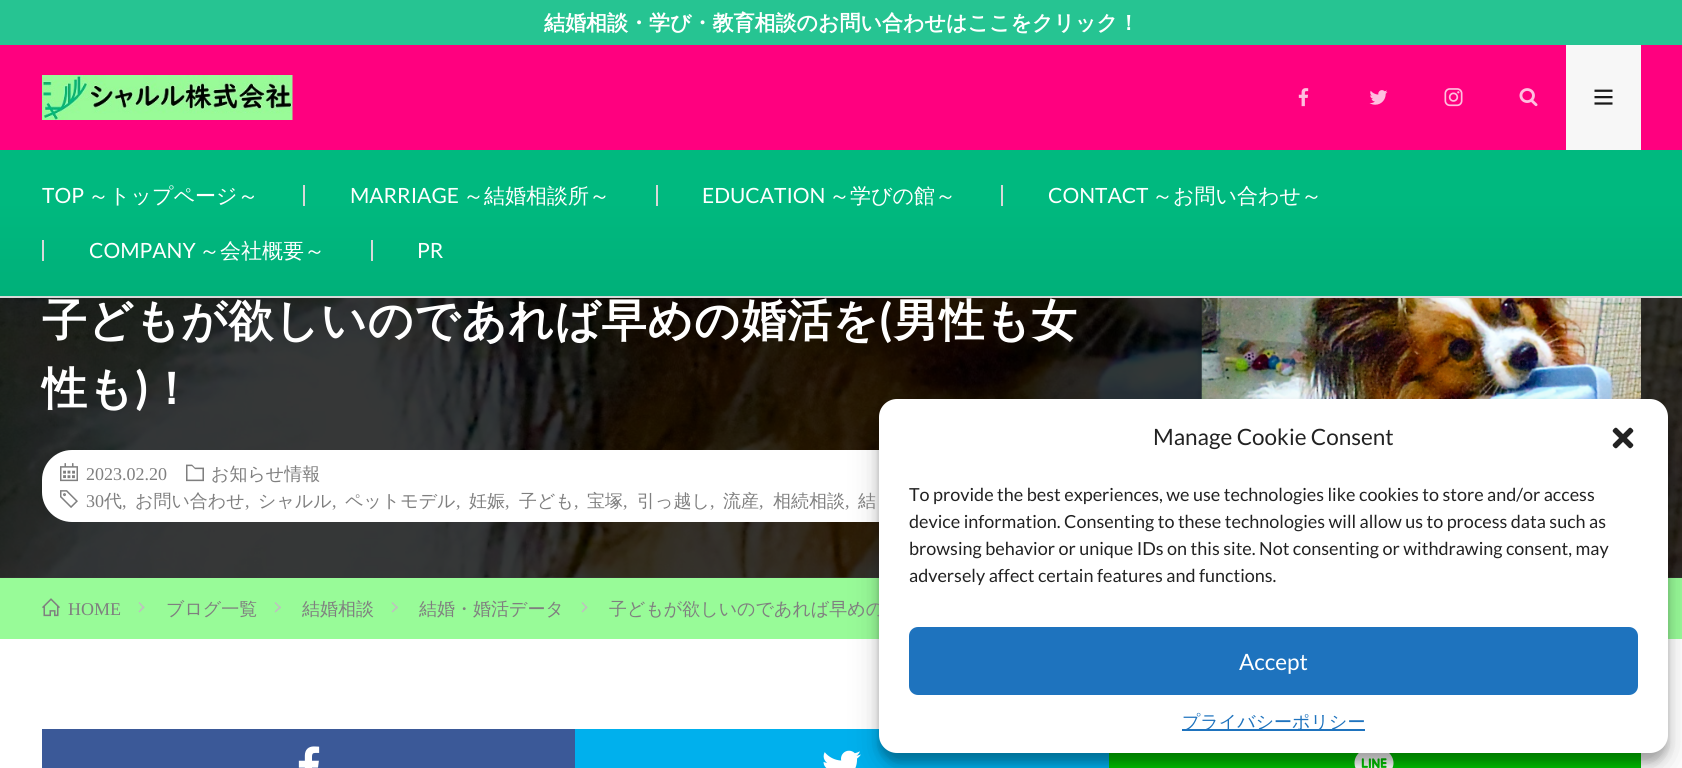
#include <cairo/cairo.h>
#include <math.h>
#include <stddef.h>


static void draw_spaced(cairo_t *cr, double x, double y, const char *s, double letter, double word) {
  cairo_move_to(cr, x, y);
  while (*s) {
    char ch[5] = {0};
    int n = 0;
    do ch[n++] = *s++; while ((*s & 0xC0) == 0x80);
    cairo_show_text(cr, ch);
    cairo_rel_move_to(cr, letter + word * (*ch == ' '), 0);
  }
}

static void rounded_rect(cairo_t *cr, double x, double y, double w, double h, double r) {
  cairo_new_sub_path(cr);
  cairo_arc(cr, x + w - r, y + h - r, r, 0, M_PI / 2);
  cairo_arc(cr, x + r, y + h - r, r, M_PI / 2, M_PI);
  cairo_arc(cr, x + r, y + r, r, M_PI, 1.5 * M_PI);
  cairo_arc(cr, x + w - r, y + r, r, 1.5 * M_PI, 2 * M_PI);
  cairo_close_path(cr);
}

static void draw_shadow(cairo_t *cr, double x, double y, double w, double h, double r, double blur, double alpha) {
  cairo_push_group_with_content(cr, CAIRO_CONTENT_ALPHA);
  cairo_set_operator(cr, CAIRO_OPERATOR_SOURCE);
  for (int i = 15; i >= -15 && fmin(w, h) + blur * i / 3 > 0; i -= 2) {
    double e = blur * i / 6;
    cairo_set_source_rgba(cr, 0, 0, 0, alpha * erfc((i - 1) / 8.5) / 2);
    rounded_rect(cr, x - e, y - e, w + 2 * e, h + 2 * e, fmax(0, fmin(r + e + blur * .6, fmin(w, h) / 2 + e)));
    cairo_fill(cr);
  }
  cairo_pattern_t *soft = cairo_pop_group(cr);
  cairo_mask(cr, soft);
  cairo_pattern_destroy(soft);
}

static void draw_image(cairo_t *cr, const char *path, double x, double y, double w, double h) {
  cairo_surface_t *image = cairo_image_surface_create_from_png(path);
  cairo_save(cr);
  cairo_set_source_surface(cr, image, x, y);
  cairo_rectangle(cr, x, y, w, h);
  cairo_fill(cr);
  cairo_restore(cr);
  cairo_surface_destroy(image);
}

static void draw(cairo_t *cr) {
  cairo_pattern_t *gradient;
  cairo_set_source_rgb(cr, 1, 1, 1);
  cairo_paint(cr);
  cairo_set_source_rgb(cr, 56 / 255.0, 56 / 255.0, 56 / 255.0);
  cairo_rectangle(cr, 0, 577, 1682, 1);
  cairo_fill(cr);
  cairo_set_source_rgb(cr, 38 / 255.0, 196 / 255.0, 146 / 255.0);
  cairo_rectangle(cr, 0, 0, 1682, 45);
  cairo_fill(cr);
  cairo_set_source_rgb(cr, 1, 0, 127 / 255.0);
  cairo_rectangle(cr, 0, 45, 1682, 105);
  cairo_fill(cr);
  draw_image(cr, "images/1.png", 42, 75, 251, 45);
  draw_image(cr, "images/2.png", 1298, 88, 11, 19);
  draw_image(cr, "images/3.png", 1369, 90, 19, 15);
  draw_image(cr, "images/4.png", 1444, 88, 19, 19);
  draw_image(cr, "images/5.png", 1519, 88, 19, 19);
  cairo_set_source_rgb(cr, 247 / 255.0, 247 / 255.0, 247 / 255.0);
  cairo_rectangle(cr, 1566, 45, 75, 105);
  cairo_fill(cr);
  draw_image(cr, "images/6.png", 1594, 89, 19, 16);
  draw_image(cr, "images/7.png", 0, 298, 1682, 280);
  cairo_set_source_rgb(cr, 0, 0, 0);
  draw_shadow(cr, 1211, 312, 421, 230, 0, 7.5, 0.25);
  cairo_set_source_rgb(cr, 216 / 255.0, 216 / 255.0, 216 / 255.0);
  cairo_rectangle(cr, 0, 296, 1682, 2);
  cairo_fill(cr);
  gradient = cairo_pattern_create_linear(842, 150, 842, 296);
  cairo_pattern_add_color_stop_rgba(gradient, 0, 0, 185 / 255.0, 127 / 255.0, 1);
  cairo_pattern_add_color_stop_rgba(gradient, 0.35, 0, 185 / 255.0, 127 / 255.0, 1);
  cairo_pattern_add_color_stop_rgba(gradient, 1, 0, 176 / 255.0, 121 / 255.0, 1);
  cairo_set_source(cr, gradient);
  cairo_pattern_destroy(gradient);
  cairo_rectangle(cr, 0, 150, 1682, 146);
  cairo_fill(cr);
  cairo_set_source_rgb(cr, 216 / 255.0, 216 / 255.0, 216 / 255.0);
  cairo_rectangle(cr, 303, 185, 2, 21);
  cairo_fill(cr);
  cairo_rectangle(cr, 656, 185, 2, 21);
  cairo_fill(cr);
  cairo_rectangle(cr, 1001, 185, 2, 21);
  cairo_fill(cr);
  cairo_rectangle(cr, 42, 240, 2, 21);
  cairo_fill(cr);
  cairo_rectangle(cr, 371, 240, 2, 21);
  cairo_fill(cr);
  cairo_set_source_rgb(cr, 1, 1, 1);
  rounded_rect(cr, 42, 450, 1080, 72, 30);
  cairo_fill(cr);
  draw_image(cr, "images/8.png", 60, 463, 18, 19);
  draw_image(cr, "images/9.png", 186, 464, 18, 18);
  draw_image(cr, "images/10.png", 60, 490, 18, 18);
  draw_image(cr, "images/11.png", 1201, 298, 440, 101);
  cairo_set_source_rgb(cr, 152 / 255.0, 251 / 255.0, 152 / 255.0);
  cairo_rectangle(cr, 0, 578, 1682, 61);
  cairo_fill(cr);
  draw_image(cr, "images/12.png", 42, 598, 18, 19);
  cairo_set_source_rgb(cr, 191 / 255.0, 191 / 255.0, 191 / 255.0);
  cairo_new_path(cr);
  cairo_move_to(cr, 139.5, 602);
  cairo_line_to(cr, 144.5, 607.5);
  cairo_line_to(cr, 143.5, 608.5);
  cairo_line_to(cr, 138.5, 603);
  cairo_close_path(cr);
  cairo_fill(cr);
  cairo_new_path(cr);
  cairo_move_to(cr, 143.5, 606);
  cairo_line_to(cr, 144.5, 607.5);
  cairo_line_to(cr, 139.5, 612.5);
  cairo_line_to(cr, 138.5, 611.5);
  cairo_close_path(cr);
  cairo_fill(cr);
  cairo_new_path(cr);
  cairo_move_to(cr, 275.5, 602);
  cairo_line_to(cr, 281, 607.5);
  cairo_line_to(cr, 280, 608.5);
  cairo_line_to(cr, 274.5, 603);
  cairo_close_path(cr);
  cairo_fill(cr);
  cairo_new_path(cr);
  cairo_move_to(cr, 280, 606);
  cairo_line_to(cr, 281, 607.5);
  cairo_line_to(cr, 275.5, 612.5);
  cairo_line_to(cr, 274.5, 611.5);
  cairo_close_path(cr);
  cairo_fill(cr);
  cairo_new_path(cr);
  cairo_move_to(cr, 392.5, 602);
  cairo_line_to(cr, 398, 607.5);
  cairo_line_to(cr, 397, 608.5);
  cairo_line_to(cr, 391.5, 603);
  cairo_close_path(cr);
  cairo_fill(cr);
  cairo_new_path(cr);
  cairo_move_to(cr, 397, 606);
  cairo_line_to(cr, 398, 607.5);
  cairo_line_to(cr, 392.5, 612.5);
  cairo_line_to(cr, 391.5, 611.5);
  cairo_close_path(cr);
  cairo_fill(cr);
  cairo_new_path(cr);
  cairo_move_to(cr, 582.5, 602);
  cairo_line_to(cr, 587.5, 607.5);
  cairo_line_to(cr, 586.5, 608.5);
  cairo_line_to(cr, 581.5, 603);
  cairo_close_path(cr);
  cairo_fill(cr);
  cairo_new_path(cr);
  cairo_move_to(cr, 586.5, 606);
  cairo_line_to(cr, 587.5, 607.5);
  cairo_line_to(cr, 582.5, 612.5);
  cairo_line_to(cr, 581.5, 611.5);
  cairo_close_path(cr);
  cairo_fill(cr);
  cairo_set_source_rgb(cr, 0, 176 / 255.0, 237 / 255.0);
  cairo_rectangle(cr, 575, 729, 534, 39);
  cairo_fill(cr);
  cairo_set_source_rgb(cr, 0, 195 / 255.0, 0);
  cairo_rectangle(cr, 1109, 753, 532, 15);
  cairo_fill(cr);
  draw_image(cr, "images/16.png", 1354, 753, 40, 15);
  cairo_set_source_rgb(cr, 0, 0, 0);
  draw_shadow(cr, 879, 408, 789, 354, 18, 4.5, 0.23);
  draw_image(cr, "images/15.png", 823, 750, 38, 18);
  draw_shadow(cr, 879, 414, 789, 354, 18, 15, 0.19);
  cairo_set_source_rgb(cr, 59 / 255.0, 89 / 255.0, 152 / 255.0);
  cairo_rectangle(cr, 42, 729, 533, 39);
  cairo_fill(cr);
  draw_image(cr, "images/14.png", 298, 746, 22, 22);
  cairo_select_font_face(cr, "WenQuanYi Zen Hei", CAIRO_FONT_SLANT_NORMAL, CAIRO_FONT_WEIGHT_BOLD);
  cairo_set_font_size(cr, 21);
  cairo_set_source_rgb(cr, 1, 1, 1);
  cairo_move_to(cr, 544, 30);
  cairo_show_text(cr, "結婚相談・学び・教育相談のお問い合わせはここをクリック！");
  cairo_select_font_face(cr, "Lato", CAIRO_FONT_SLANT_NORMAL, CAIRO_FONT_WEIGHT_NORMAL);
  cairo_move_to(cr, 42, 203);
  cairo_show_text(cr, "TOP");
  cairo_select_font_face(cr, "WenQuanYi Zen Hei Medium", CAIRO_FONT_SLANT_NORMAL, CAIRO_FONT_WEIGHT_NORMAL);
  cairo_move_to(cr, 88, 203);
  cairo_show_text(cr, "～トップページ～");
  cairo_select_font_face(cr, "Lato", CAIRO_FONT_SLANT_NORMAL, CAIRO_FONT_WEIGHT_NORMAL);
  cairo_move_to(cr, 350, 203);
  cairo_show_text(cr, "MARRIAGE");
  cairo_select_font_face(cr, "WenQuanYi Zen Hei Medium", CAIRO_FONT_SLANT_NORMAL, CAIRO_FONT_WEIGHT_NORMAL);
  cairo_move_to(cr, 463, 203);
  cairo_show_text(cr, "～結婚相談所～");
  cairo_select_font_face(cr, "Lato", CAIRO_FONT_SLANT_NORMAL, CAIRO_FONT_WEIGHT_NORMAL);
  cairo_move_to(cr, 702, 203);
  cairo_show_text(cr, "EDUCATION");
  cairo_select_font_face(cr, "WenQuanYi Zen Hei Medium", CAIRO_FONT_SLANT_NORMAL, CAIRO_FONT_WEIGHT_NORMAL);
  cairo_move_to(cr, 829, 203);
  cairo_show_text(cr, "～学びの館～");
  cairo_select_font_face(cr, "Lato", CAIRO_FONT_SLANT_NORMAL, CAIRO_FONT_WEIGHT_NORMAL);
  cairo_move_to(cr, 1048, 203);
  cairo_show_text(cr, "CONTACT");
  cairo_select_font_face(cr, "WenQuanYi Zen Hei Medium", CAIRO_FONT_SLANT_NORMAL, CAIRO_FONT_WEIGHT_NORMAL);
  cairo_move_to(cr, 1152, 203);
  cairo_show_text(cr, "～お問い合わせ～");
  cairo_select_font_face(cr, "Lato", CAIRO_FONT_SLANT_NORMAL, CAIRO_FONT_WEIGHT_NORMAL);
  cairo_move_to(cr, 89, 258);
  cairo_show_text(cr, "COMPANY");
  cairo_select_font_face(cr, "WenQuanYi Zen Hei Medium", CAIRO_FONT_SLANT_NORMAL, CAIRO_FONT_WEIGHT_NORMAL);
  cairo_move_to(cr, 199, 258);
  cairo_show_text(cr, "～会社概要～");
  cairo_select_font_face(cr, "Lato", CAIRO_FONT_SLANT_NORMAL, CAIRO_FONT_WEIGHT_NORMAL);
  cairo_move_to(cr, 417, 258);
  cairo_show_text(cr, "PR");
  cairo_select_font_face(cr, "WenQuanYi Zen Hei", CAIRO_FONT_SLANT_NORMAL, CAIRO_FONT_WEIGHT_BOLD);
  cairo_set_font_size(cr, 45);
  draw_spaced(cr, 42, 336, "子どもが欲しいのであれば早めの婚活を 男性も女", 0.75, 0);
  cairo_select_font_face(cr, "Lato", CAIRO_FONT_SLANT_NORMAL, CAIRO_FONT_WEIGHT_BOLD);
  draw_spaced(cr, 879, 336, "(", 0.75, 0);
  cairo_select_font_face(cr, "WenQuanYi Zen Hei", CAIRO_FONT_SLANT_NORMAL, CAIRO_FONT_WEIGHT_BOLD);
  draw_spaced(cr, 42, 404, "性も ！", 0.75, 0);
  cairo_select_font_face(cr, "Lato", CAIRO_FONT_SLANT_NORMAL, CAIRO_FONT_WEIGHT_BOLD);
  draw_spaced(cr, 135, 404, ")", 0.75, 0);
  cairo_select_font_face(cr, "Liberation Serif", CAIRO_FONT_SLANT_NORMAL, CAIRO_FONT_WEIGHT_NORMAL);
  cairo_set_font_size(cr, 18);
  cairo_set_source_rgb(cr, 127 / 255.0, 127 / 255.0, 127 / 255.0);
  cairo_move_to(cr, 86, 480);
  cairo_show_text(cr, "2023.02.20");
  cairo_select_font_face(cr, "WenQuanYi Zen Hei Medium", CAIRO_FONT_SLANT_NORMAL, CAIRO_FONT_WEIGHT_NORMAL);
  cairo_move_to(cr, 211, 480);
  cairo_show_text(cr, "お知らせ情報");
  cairo_select_font_face(cr, "Liberation Serif", CAIRO_FONT_SLANT_NORMAL, CAIRO_FONT_WEIGHT_NORMAL);
  cairo_move_to(cr, 86, 507);
  cairo_show_text(cr, "30");
  cairo_select_font_face(cr, "WenQuanYi Zen Hei Medium", CAIRO_FONT_SLANT_NORMAL, CAIRO_FONT_WEIGHT_NORMAL);
  cairo_move_to(cr, 104, 507);
  cairo_show_text(cr, "代");
  cairo_select_font_face(cr, "Liberation Serif", CAIRO_FONT_SLANT_NORMAL, CAIRO_FONT_WEIGHT_NORMAL);
  cairo_move_to(cr, 122, 507);
  cairo_show_text(cr, ",");
  cairo_select_font_face(cr, "WenQuanYi Zen Hei Medium", CAIRO_FONT_SLANT_NORMAL, CAIRO_FONT_WEIGHT_NORMAL);
  cairo_move_to(cr, 135, 507);
  cairo_show_text(cr, "お問い合わせ");
  cairo_select_font_face(cr, "Liberation Serif", CAIRO_FONT_SLANT_NORMAL, CAIRO_FONT_WEIGHT_NORMAL);
  cairo_move_to(cr, 245, 507);
  cairo_show_text(cr, ",");
  cairo_select_font_face(cr, "WenQuanYi Zen Hei Medium", CAIRO_FONT_SLANT_NORMAL, CAIRO_FONT_WEIGHT_NORMAL);
  cairo_move_to(cr, 258, 507);
  cairo_show_text(cr, "シャルル");
  cairo_select_font_face(cr, "Liberation Serif", CAIRO_FONT_SLANT_NORMAL, CAIRO_FONT_WEIGHT_NORMAL);
  cairo_move_to(cr, 332, 507);
  cairo_show_text(cr, ",");
  cairo_select_font_face(cr, "WenQuanYi Zen Hei Medium", CAIRO_FONT_SLANT_NORMAL, CAIRO_FONT_WEIGHT_NORMAL);
  cairo_move_to(cr, 345, 507);
  cairo_show_text(cr, "ペットモデル");
  cairo_select_font_face(cr, "Liberation Serif", CAIRO_FONT_SLANT_NORMAL, CAIRO_FONT_WEIGHT_NORMAL);
  cairo_move_to(cr, 456, 507);
  cairo_show_text(cr, ",");
  cairo_select_font_face(cr, "WenQuanYi Zen Hei Medium", CAIRO_FONT_SLANT_NORMAL, CAIRO_FONT_WEIGHT_NORMAL);
  cairo_move_to(cr, 469, 507);
  cairo_show_text(cr, "妊娠");
  cairo_select_font_face(cr, "Liberation Serif", CAIRO_FONT_SLANT_NORMAL, CAIRO_FONT_WEIGHT_NORMAL);
  cairo_move_to(cr, 505, 507);
  cairo_show_text(cr, ",");
  cairo_select_font_face(cr, "WenQuanYi Zen Hei Medium", CAIRO_FONT_SLANT_NORMAL, CAIRO_FONT_WEIGHT_NORMAL);
  cairo_move_to(cr, 519, 507);
  cairo_show_text(cr, "子ども");
  cairo_select_font_face(cr, "Liberation Serif", CAIRO_FONT_SLANT_NORMAL, CAIRO_FONT_WEIGHT_NORMAL);
  cairo_move_to(cr, 574, 507);
  cairo_show_text(cr, ",");
  cairo_select_font_face(cr, "WenQuanYi Zen Hei Medium", CAIRO_FONT_SLANT_NORMAL, CAIRO_FONT_WEIGHT_NORMAL);
  cairo_move_to(cr, 587, 507);
  cairo_show_text(cr, "宝塚");
  cairo_select_font_face(cr, "Liberation Serif", CAIRO_FONT_SLANT_NORMAL, CAIRO_FONT_WEIGHT_NORMAL);
  cairo_move_to(cr, 623, 507);
  cairo_show_text(cr, ",");
  cairo_select_font_face(cr, "WenQuanYi Zen Hei Medium", CAIRO_FONT_SLANT_NORMAL, CAIRO_FONT_WEIGHT_NORMAL);
  cairo_move_to(cr, 637, 507);
  cairo_show_text(cr, "引っ越し");
  cairo_select_font_face(cr, "Liberation Serif", CAIRO_FONT_SLANT_NORMAL, CAIRO_FONT_WEIGHT_NORMAL);
  cairo_move_to(cr, 710, 507);
  cairo_show_text(cr, ",");
  cairo_select_font_face(cr, "WenQuanYi Zen Hei Medium", CAIRO_FONT_SLANT_NORMAL, CAIRO_FONT_WEIGHT_NORMAL);
  cairo_move_to(cr, 723, 507);
  cairo_show_text(cr, "流産");
  cairo_select_font_face(cr, "Liberation Serif", CAIRO_FONT_SLANT_NORMAL, CAIRO_FONT_WEIGHT_NORMAL);
  cairo_move_to(cr, 759, 507);
  cairo_show_text(cr, ",");
  cairo_select_font_face(cr, "WenQuanYi Zen Hei Medium", CAIRO_FONT_SLANT_NORMAL, CAIRO_FONT_WEIGHT_NORMAL);
  cairo_move_to(cr, 773, 507);
  cairo_show_text(cr, "相続相談");
  cairo_select_font_face(cr, "Liberation Serif", CAIRO_FONT_SLANT_NORMAL, CAIRO_FONT_WEIGHT_NORMAL);
  cairo_move_to(cr, 845, 507);
  cairo_show_text(cr, ",");
  cairo_select_font_face(cr, "WenQuanYi Zen Hei Medium", CAIRO_FONT_SLANT_NORMAL, CAIRO_FONT_WEIGHT_NORMAL);
  cairo_move_to(cr, 858, 507);
  cairo_show_text(cr, "結");
  cairo_select_font_face(cr, "Liberation Serif", CAIRO_FONT_SLANT_NORMAL, CAIRO_FONT_WEIGHT_NORMAL);
  cairo_move_to(cr, 68, 615);
  cairo_show_text(cr, "HOME");
  cairo_select_font_face(cr, "WenQuanYi Zen Hei Medium", CAIRO_FONT_SLANT_NORMAL, CAIRO_FONT_WEIGHT_NORMAL);
  cairo_move_to(cr, 166, 615);
  cairo_show_text(cr, "ブログ一覧");
  cairo_move_to(cr, 302, 615);
  cairo_show_text(cr, "結婚相談");
  cairo_move_to(cr, 419, 615);
  cairo_show_text(cr, "結婚・婚活データ");
  cairo_move_to(cr, 609, 615);
  cairo_show_text(cr, "子どもが欲しいのであれば早めの");
  cairo_set_source_rgb(cr, 1, 1, 1);
  rounded_rect(cr, 879, 399, 789, 354, 18);
  cairo_fill(cr);
  cairo_select_font_face(cr, "Lato", CAIRO_FONT_SLANT_NORMAL, CAIRO_FONT_WEIGHT_NORMAL);
  cairo_set_font_size(cr, 22.5);
  cairo_set_source_rgb(cr, 34 / 255.0, 34 / 255.0, 34 / 255.0);
  cairo_move_to(cr, 1153, 445);
  cairo_show_text(cr, "Manage Cookie Consent");
  draw_image(cr, "images/13.png", 1612, 427, 22, 22);
  cairo_set_font_size(cr, 18);
  cairo_move_to(cr, 909, 501);
  cairo_show_text(cr, "To provide the best experiences, we use technologies like cookies to store and/or access");
  cairo_move_to(cr, 909, 528);
  cairo_show_text(cr, "device information. Consenting to these technologies will allow us to process data such as");
  cairo_move_to(cr, 909, 555);
  cairo_show_text(cr, "browsing behavior or unique IDs on this site. Not consenting or withdrawing consent, may");
  cairo_move_to(cr, 909, 582);
  cairo_show_text(cr, "adversely affect certain features and functions.");
  cairo_set_source_rgb(cr, 30 / 255.0, 115 / 255.0, 190 / 255.0);
  rounded_rect(cr, 910, 628, 727, 66, 8);
  cairo_fill_preserve(cr);
  cairo_stroke(cr);
  cairo_set_font_size(cr, 22.5);
  cairo_set_source_rgb(cr, 1, 1, 1);
  cairo_move_to(cr, 1239, 670);
  cairo_show_text(cr, "Accept");
  cairo_set_source_rgb(cr, 30 / 255.0, 115 / 255.0, 190 / 255.0);
  cairo_rectangle(cr, 1182, 729, 183, 2);
  cairo_fill(cr);
  cairo_select_font_face(cr, "WenQuanYi Zen Hei Medium", CAIRO_FONT_SLANT_NORMAL, CAIRO_FONT_WEIGHT_NORMAL);
  cairo_set_font_size(cr, 18);
  cairo_move_to(cr, 1182, 728);
  cairo_show_text(cr, "プライバシーポリシー");
}

int main(void) {
  cairo_surface_t *surface = cairo_image_surface_create(CAIRO_FORMAT_RGB24, 1682, 768);
  cairo_t *cr = cairo_create(surface);
  cairo_font_options_t *options = cairo_font_options_create();
  cairo_font_options_set_hint_metrics(options, CAIRO_HINT_METRICS_OFF);
  cairo_font_options_set_hint_style(options, CAIRO_HINT_STYLE_NONE);
  cairo_set_font_options(cr, options);
  cairo_set_miter_limit(cr, 4);
  draw(cr);
  cairo_surface_write_to_png(surface, "out.png");
  cairo_font_options_destroy(options);
  cairo_destroy(cr);
  cairo_surface_destroy(surface);
  return 0;
}
